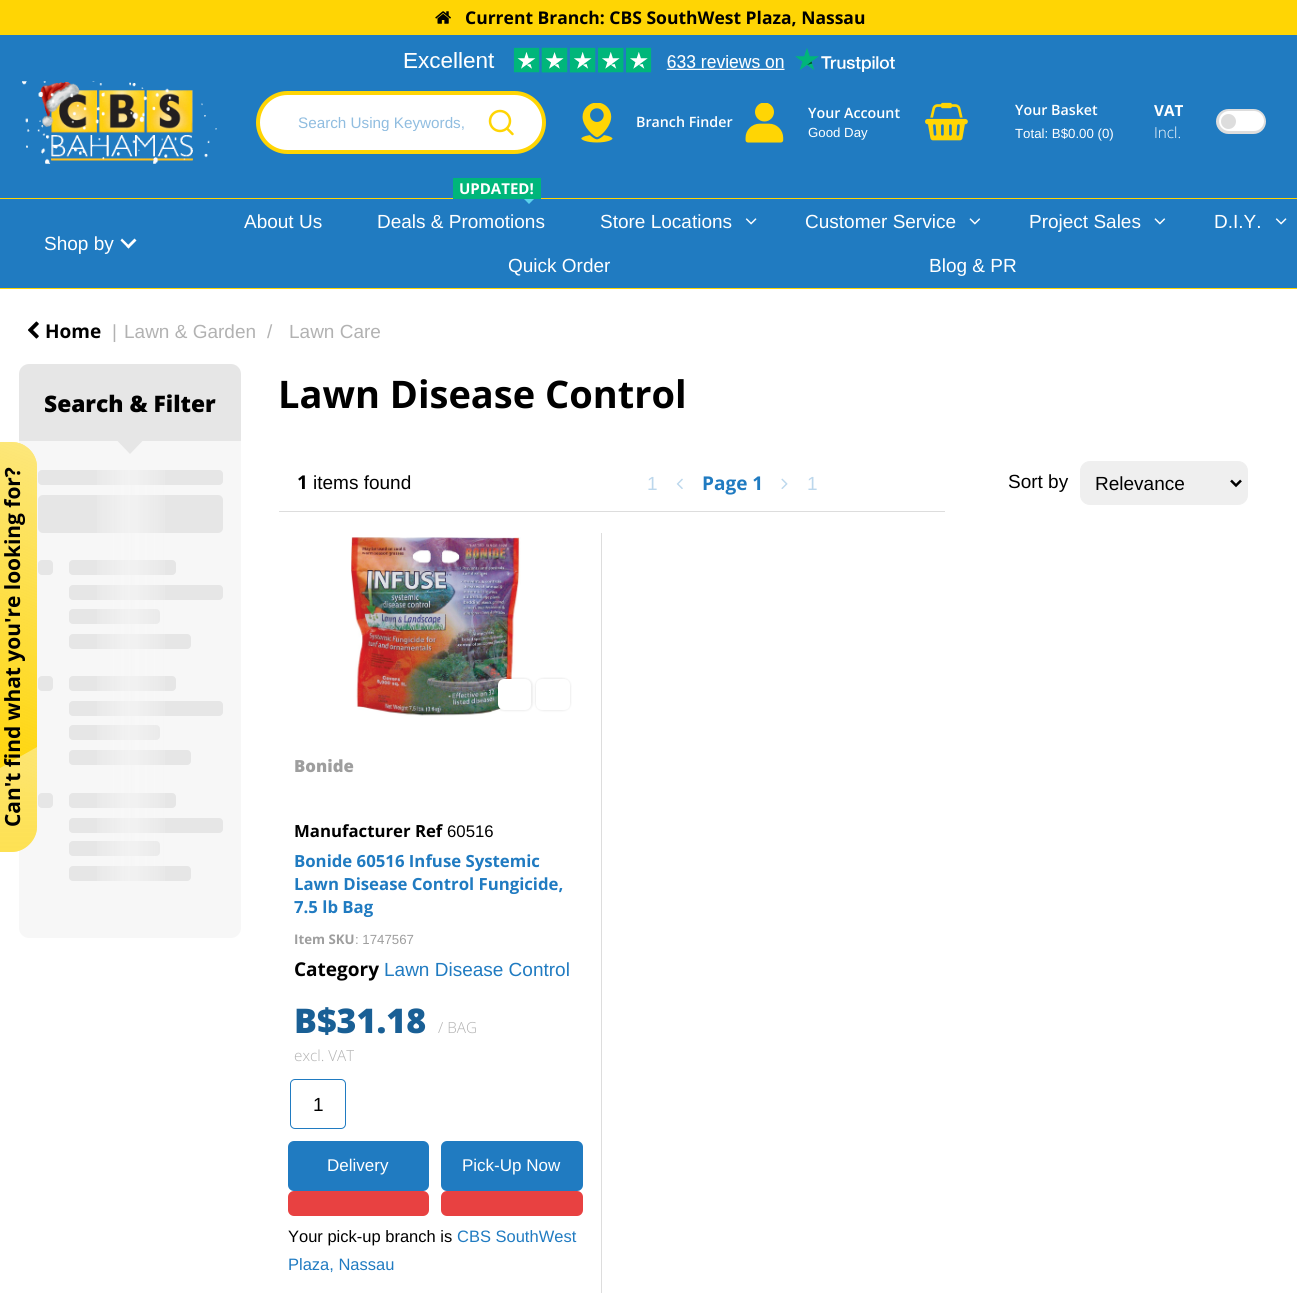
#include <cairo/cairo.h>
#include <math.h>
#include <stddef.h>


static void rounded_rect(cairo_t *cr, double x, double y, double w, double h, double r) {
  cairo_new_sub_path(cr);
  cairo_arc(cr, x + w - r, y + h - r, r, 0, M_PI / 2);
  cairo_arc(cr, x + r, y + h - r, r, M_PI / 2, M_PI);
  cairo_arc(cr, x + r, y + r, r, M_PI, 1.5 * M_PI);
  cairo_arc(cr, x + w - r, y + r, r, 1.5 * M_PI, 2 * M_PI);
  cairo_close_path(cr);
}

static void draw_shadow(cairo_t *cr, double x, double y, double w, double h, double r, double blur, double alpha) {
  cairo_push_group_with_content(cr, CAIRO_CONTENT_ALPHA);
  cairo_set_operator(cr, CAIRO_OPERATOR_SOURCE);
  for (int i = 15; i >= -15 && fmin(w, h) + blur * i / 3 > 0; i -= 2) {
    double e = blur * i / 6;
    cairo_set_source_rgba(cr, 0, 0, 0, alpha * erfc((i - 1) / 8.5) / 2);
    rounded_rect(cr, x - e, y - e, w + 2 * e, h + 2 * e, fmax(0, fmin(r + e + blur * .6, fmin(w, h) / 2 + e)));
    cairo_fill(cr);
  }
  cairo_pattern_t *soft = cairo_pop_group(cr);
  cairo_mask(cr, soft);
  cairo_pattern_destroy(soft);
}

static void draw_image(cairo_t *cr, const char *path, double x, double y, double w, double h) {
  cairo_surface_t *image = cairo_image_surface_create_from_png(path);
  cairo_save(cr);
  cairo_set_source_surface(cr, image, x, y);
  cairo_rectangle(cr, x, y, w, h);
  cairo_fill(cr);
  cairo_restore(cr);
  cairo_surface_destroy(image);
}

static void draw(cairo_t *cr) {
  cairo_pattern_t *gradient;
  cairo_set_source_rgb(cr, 1, 1, 1);
  cairo_paint(cr);
  cairo_set_source_rgb(cr, 1, 213 / 255.0, 4 / 255.0);
  cairo_rectangle(cr, 0, 0, 1297, 35);
  cairo_fill(cr);
  draw_image(cr, "images/1.png", 435, 11, 16, 13);
  cairo_set_source_rgb(cr, 32 / 255.0, 123 / 255.0, 193 / 255.0);
  cairo_rectangle(cr, 0, 35, 1297, 163);
  cairo_fill(cr);
  draw_image(cr, "images/2.png", 404, 47, 491, 26);
  draw_image(cr, "images/3.png", 22, 81, 195, 83);
  cairo_set_source_rgb(cr, 1, 1, 1);
  rounded_rect(cr, 258, 93, 286, 59, 29.5);
  cairo_fill_preserve(cr);
  cairo_set_source_rgb(cr, 1, 213 / 255.0, 4 / 255.0);
  cairo_set_line_width(cr, 4);
  cairo_stroke(cr);
  cairo_arc(cr, 500, 121, 10, 0, 2 * M_PI);
  cairo_set_line_width(cr, 2.5);
  cairo_stroke(cr);
  cairo_new_path(cr);
  cairo_move_to(cr, 512.5, 134);
  cairo_line_to(cr, 507, 128.5);
  cairo_set_line_cap(cr, CAIRO_LINE_CAP_ROUND);
  cairo_set_line_join(cr, CAIRO_LINE_JOIN_ROUND);
  cairo_stroke(cr);
  draw_image(cr, "images/4.png", 581, 103, 32, 40);
  draw_image(cr, "images/5.png", 745, 103, 39, 40);
  draw_image(cr, "images/6.png", 925, 102, 43, 39);
  cairo_set_source_rgb(cr, 221 / 255.0, 221 / 255.0, 221 / 255.0);
  rounded_rect(cr, 1216, 109, 50, 25, 12.5);
  cairo_fill(cr);
  cairo_set_source_rgb(cr, 1, 1, 1);
  rounded_rect(cr, 1219, 111, 45, 20, 10);
  cairo_fill(cr);
  cairo_set_source_rgb(cr, 221 / 255.0, 221 / 255.0, 221 / 255.0);
  cairo_arc(cr, 1228.5, 121.5, 7.5, 0, 2 * M_PI);
  cairo_fill(cr);
  cairo_set_source_rgb(cr, 32 / 255.0, 123 / 255.0, 193 / 255.0);
  cairo_rectangle(cr, 0, 199, 1297, 89);
  cairo_fill(cr);
  cairo_set_source_rgb(cr, 1, 213 / 255.0, 4 / 255.0);
  cairo_rectangle(cr, 0, 198, 1297, 1);
  cairo_fill(cr);
  cairo_rectangle(cr, 0, 288, 1297, 1);
  cairo_fill(cr);
  cairo_set_source_rgb(cr, 1, 1, 1);
  cairo_new_path(cr);
  cairo_move_to(cr, 122, 238.5);
  cairo_line_to(cr, 130, 246.5);
  cairo_line_to(cr, 128.5, 248.5);
  cairo_line_to(cr, 120.5, 240.5);
  cairo_close_path(cr);
  cairo_fill(cr);
  cairo_new_path(cr);
  cairo_move_to(cr, 126.5, 246.5);
  cairo_line_to(cr, 134.5, 238.5);
  cairo_line_to(cr, 136.5, 240.5);
  cairo_line_to(cr, 128.5, 248.5);
  cairo_close_path(cr);
  cairo_fill(cr);
  cairo_set_source_rgb(cr, 91 / 255.0, 210 / 255.0, 236 / 255.0);
  cairo_new_path(cr);
  cairo_move_to(cr, 519, 194);
  cairo_line_to(cr, 539, 194);
  cairo_line_to(cr, 529, 204);
  cairo_close_path(cr);
  cairo_fill(cr);
  cairo_set_source_rgb(cr, 0, 182 / 255.0, 122 / 255.0);
  cairo_rectangle(cr, 453, 178, 88, 21);
  cairo_fill(cr);
  draw_image(cr, "images/7.png", 745, 218, 12, 7);
  draw_image(cr, "images/8.png", 969, 218, 12, 7);
  draw_image(cr, "images/8.png", 1154, 218, 12, 7);
  draw_image(cr, "images/7.png", 1275, 218, 12, 7);
  cairo_set_source_rgb(cr, 247 / 255.0, 247 / 255.0, 247 / 255.0);
  cairo_new_path(cr);
  cairo_move_to(cr, 19, 374);
  cairo_line_to(cr, 241, 374);
  cairo_line_to(cr, 241, 928);
  cairo_curve_to(cr, 241, 933.5, 236.5, 938, 231, 938);
  cairo_line_to(cr, 29, 938);
  cairo_curve_to(cr, 23.5, 938, 19, 933.5, 19, 928);
  cairo_close_path(cr);
  cairo_fill(cr);
  cairo_set_source_rgb(cr, 1, 213 / 255.0, 4 / 255.0);
  cairo_new_path(cr);
  cairo_move_to(cr, -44, 852);
  cairo_line_to(cr, -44, 442);
  cairo_line_to(cr, 12, 442);
  cairo_curve_to(cr, 25, 442, 37, 453, 37, 467);
  cairo_line_to(cr, 37, 827);
  cairo_curve_to(cr, 37, 840, 25, 852, 12, 852);
  cairo_close_path(cr);
  cairo_fill(cr);
  gradient = cairo_pattern_create_linear(-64, 769, 57, 443);
  cairo_pattern_add_color_stop_rgba(gradient, 0, 250 / 255.0, 250 / 255.0, 250 / 255.0, 0);
  cairo_pattern_add_color_stop_rgba(gradient, 1, 250 / 255.0, 250 / 255.0, 250 / 255.0, 0.5);
  cairo_set_source(cr, gradient);
  cairo_pattern_destroy(gradient);
  cairo_new_path(cr);
  cairo_move_to(cr, 36, 833);
  cairo_line_to(cr, -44, 787);
  cairo_line_to(cr, -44, 442);
  cairo_line_to(cr, 12, 442);
  cairo_curve_to(cr, 25, 442, 37, 453, 37, 467);
  cairo_line_to(cr, 37, 827);
  cairo_close_path(cr);
  cairo_fill(cr);
  gradient = cairo_pattern_create_linear(-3.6, 1179, -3.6, 770);
  cairo_pattern_add_color_stop_rgba(gradient, 0, 250 / 255.0, 250 / 255.0, 250 / 255.0, 0);
  cairo_pattern_add_color_stop_rgba(gradient, 1, 250 / 255.0, 250 / 255.0, 250 / 255.0, 0.4);
  cairo_set_source(cr, gradient);
  cairo_pattern_destroy(gradient);
  cairo_new_path(cr);
  cairo_move_to(cr, -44, 852);
  cairo_line_to(cr, 12, 852);
  cairo_curve_to(cr, 25, 852, 37, 840, 37, 827);
  cairo_line_to(cr, 37, 747);
  cairo_line_to(cr, -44, 793);
  cairo_close_path(cr);
  cairo_fill(cr);
  draw_image(cr, "images/9.png", 28, 321, 11, 18);
  cairo_set_source_rgb(cr, 230 / 255.0, 230 / 255.0, 230 / 255.0);
  cairo_new_path(cr);
  cairo_move_to(cr, 29, 364);
  cairo_line_to(cr, 231, 364);
  cairo_curve_to(cr, 236.5, 364, 241, 368.5, 241, 374);
  cairo_line_to(cr, 241, 441);
  cairo_line_to(cr, 19, 441);
  cairo_line_to(cr, 19, 374);
  cairo_curve_to(cr, 19, 368.5, 23.5, 364, 29, 364);
  cairo_close_path(cr);
  cairo_fill(cr);
  cairo_new_path(cr);
  cairo_move_to(cr, 117.5, 441);
  cairo_line_to(cr, 142.5, 441);
  cairo_line_to(cr, 130, 454);
  cairo_close_path(cr);
  cairo_fill(cr);
  rounded_rect(cr, 38, 470, 185, 15, 4);
  cairo_fill(cr);
  rounded_rect(cr, 38, 495, 185, 38, 5);
  cairo_fill(cr);
  rounded_rect(cr, 69, 560, 107, 15, 4);
  cairo_fill(cr);
  rounded_rect(cr, 38, 560, 15, 15, 4);
  cairo_fill(cr);
  rounded_rect(cr, 69, 585, 154, 15, 4);
  cairo_fill(cr);
  rounded_rect(cr, 69, 609, 91, 15, 4);
  cairo_fill(cr);
  rounded_rect(cr, 69, 634, 122, 15, 4);
  cairo_fill(cr);
  rounded_rect(cr, 69, 676, 107, 15, 4);
  cairo_fill(cr);
  rounded_rect(cr, 38, 676, 15, 15, 4);
  cairo_fill(cr);
  rounded_rect(cr, 69, 701, 154, 15, 4);
  cairo_fill(cr);
  rounded_rect(cr, 69, 725, 91, 15, 4);
  cairo_fill(cr);
  rounded_rect(cr, 69, 750, 122, 15, 4);
  cairo_fill(cr);
  rounded_rect(cr, 69, 793, 107, 15, 4);
  cairo_fill(cr);
  rounded_rect(cr, 38, 793, 15, 15, 4);
  cairo_fill(cr);
  rounded_rect(cr, 69, 818, 154, 15, 4);
  cairo_fill(cr);
  rounded_rect(cr, 69, 841, 91, 15, 4);
  cairo_fill(cr);
  rounded_rect(cr, 69, 866, 122, 15, 4);
  cairo_fill(cr);
  gradient = cairo_pattern_create_linear(-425, 691, 685, 691);
  cairo_pattern_add_color_stop_rgba(gradient, 0.46, 247 / 255.0, 247 / 255.0, 247 / 255.0, 0);
  cairo_pattern_add_color_stop_rgba(gradient, 0.5, 247 / 255.0, 247 / 255.0, 247 / 255.0, 0.7);
  cairo_pattern_add_color_stop_rgba(gradient, 0.54, 247 / 255.0, 247 / 255.0, 247 / 255.0, 0);
  cairo_set_source(cr, gradient);
  cairo_pattern_destroy(gradient);
  cairo_rectangle(cr, 97, 470, 68, 411);
  cairo_fill(cr);
  draw_image(cr, "images/10.png", 676, 478, 7, 11);
  draw_image(cr, "images/11.png", 781, 478, 7, 11);
  cairo_set_source_rgb(cr, 239 / 255.0, 239 / 255.0, 239 / 255.0);
  rounded_rect(cr, 1080.5, 461.5, 167, 43, 9.5);
  cairo_fill_preserve(cr);
  cairo_set_line_width(cr, 1);
  cairo_set_line_cap(cr, CAIRO_LINE_CAP_BUTT);
  cairo_set_line_join(cr, CAIRO_LINE_JOIN_MITER);
  cairo_stroke(cr);
  cairo_new_path(cr);
  cairo_move_to(cr, 1231, 480.5);
  cairo_line_to(cr, 1236, 485.5);
  cairo_line_to(cr, 1241, 480.5);
  cairo_set_source_rgb(cr, 0, 0, 0);
  cairo_set_line_width(cr, 2.5);
  cairo_stroke(cr);
  cairo_set_source_rgb(cr, 221 / 255.0, 221 / 255.0, 221 / 255.0);
  cairo_rectangle(cr, 279, 511, 666, 1);
  cairo_fill(cr);
  cairo_rectangle(cr, 601, 533, 1, 760);
  cairo_fill(cr);
  draw_image(cr, "images/12.png", 351, 537, 170, 179);
  cairo_set_source_rgb(cr, 0, 0, 0);
  draw_shadow(cr, 496, 678, 37, 33, 8, 1, 0.07);
  cairo_set_source_rgb(cr, 1, 1, 1);
  rounded_rect(cr, 498, 679, 33, 31, 6);
  cairo_fill(cr);
  cairo_set_source_rgb(cr, 0, 0, 0);
  draw_shadow(cr, 535, 678, 36, 33, 8, 1, 0.07);
  cairo_set_source_rgb(cr, 1, 1, 1);
  rounded_rect(cr, 536, 679, 34, 31, 6);
  cairo_fill(cr);
  rounded_rect(cr, 290.5, 1079.5, 55, 49, 4.5);
  cairo_set_source_rgb(cr, 32 / 255.0, 123 / 255.0, 193 / 255.0);
  cairo_set_line_width(cr, 1);
  cairo_stroke(cr);
  rounded_rect(cr, 288, 1141, 141, 50, 6);
  cairo_fill(cr);
  cairo_set_source_rgb(cr, 232 / 255.0, 65 / 255.0, 65 / 255.0);
  rounded_rect(cr, 288, 1191, 141, 25, 6);
  cairo_fill(cr);
  cairo_set_source_rgb(cr, 32 / 255.0, 123 / 255.0, 193 / 255.0);
  rounded_rect(cr, 441, 1141, 142, 50, 6);
  cairo_fill(cr);
  cairo_set_source_rgb(cr, 232 / 255.0, 65 / 255.0, 65 / 255.0);
  rounded_rect(cr, 441, 1191, 142, 25, 6);
  cairo_fill(cr);
  cairo_select_font_face(cr, "Open Sans", CAIRO_FONT_SLANT_NORMAL, CAIRO_FONT_WEIGHT_BOLD);
  cairo_set_font_size(cr, 17.5);
  cairo_set_source_rgb(cr, 0, 0, 0);
  cairo_move_to(cr, 465, 24);
  cairo_show_text(cr, "Current Branch: CBS SouthWest Plaza, Nassau");
  cairo_save(cr);
  cairo_rectangle(cr, 298, 114, 170, 17);
  cairo_clip(cr);
  cairo_select_font_face(cr, "Liberation Sans", CAIRO_FONT_SLANT_NORMAL, CAIRO_FONT_WEIGHT_NORMAL);
  cairo_set_font_size(cr, 15.25);
  cairo_set_source_rgb(cr, 144 / 255.0, 189 / 255.0, 224 / 255.0);
  cairo_move_to(cr, 298, 128);
  cairo_show_text(cr, "Search Using Keywords,");
  cairo_restore(cr);
  cairo_select_font_face(cr, "Open Sans SemiBold", CAIRO_FONT_SLANT_NORMAL, CAIRO_FONT_WEIGHT_NORMAL);
  cairo_set_font_size(cr, 14.25);
  cairo_set_source_rgb(cr, 1, 1, 1);
  cairo_move_to(cr, 636, 127);
  cairo_show_text(cr, "Branch Finder");
  cairo_move_to(cr, 808, 118);
  cairo_show_text(cr, "Your Account");
  cairo_select_font_face(cr, "Liberation Sans", CAIRO_FONT_SLANT_NORMAL, CAIRO_FONT_WEIGHT_NORMAL);
  cairo_set_font_size(cr, 13.25);
  cairo_move_to(cr, 808, 137);
  cairo_show_text(cr, "Good Day");
  cairo_select_font_face(cr, "Open Sans SemiBold", CAIRO_FONT_SLANT_NORMAL, CAIRO_FONT_WEIGHT_NORMAL);
  cairo_set_font_size(cr, 14.25);
  cairo_move_to(cr, 1015, 115);
  cairo_show_text(cr, "Your Basket");
  cairo_select_font_face(cr, "Liberation Sans", CAIRO_FONT_SLANT_NORMAL, CAIRO_FONT_WEIGHT_NORMAL);
  cairo_set_font_size(cr, 13.25);
  cairo_move_to(cr, 1015, 138);
  cairo_show_text(cr, "Total: B$0.00 (0)");
  cairo_select_font_face(cr, "Open Sans", CAIRO_FONT_SLANT_NORMAL, CAIRO_FONT_WEIGHT_BOLD);
  cairo_set_font_size(cr, 15.25);
  cairo_move_to(cr, 1154, 116);
  cairo_show_text(cr, "VAT");
  cairo_select_font_face(cr, "Open Sans Light", CAIRO_FONT_SLANT_NORMAL, CAIRO_FONT_WEIGHT_NORMAL);
  cairo_move_to(cr, 1154, 138);
  cairo_show_text(cr, "Incl.");
  cairo_select_font_face(cr, "Liberation Sans", CAIRO_FONT_SLANT_NORMAL, CAIRO_FONT_WEIGHT_NORMAL);
  cairo_set_font_size(cr, 19);
  cairo_move_to(cr, 44, 250);
  cairo_show_text(cr, "Shop by");
  cairo_move_to(cr, 244, 228);
  cairo_show_text(cr, "About Us");
  cairo_select_font_face(cr, "Open Sans", CAIRO_FONT_SLANT_NORMAL, CAIRO_FONT_WEIGHT_BOLD);
  cairo_set_font_size(cr, 15);
  cairo_move_to(cr, 459, 194);
  cairo_show_text(cr, "UPDATED!");
  cairo_select_font_face(cr, "Liberation Sans", CAIRO_FONT_SLANT_NORMAL, CAIRO_FONT_WEIGHT_NORMAL);
  cairo_set_font_size(cr, 19);
  cairo_move_to(cr, 377, 228);
  cairo_show_text(cr, "Deals & Promotions");
  cairo_move_to(cr, 600, 228);
  cairo_show_text(cr, "Store Locations");
  cairo_move_to(cr, 805, 228);
  cairo_show_text(cr, "Customer Service");
  cairo_move_to(cr, 1029, 228);
  cairo_show_text(cr, "Project Sales");
  cairo_move_to(cr, 1214, 228);
  cairo_show_text(cr, "D.I.Y.");
  cairo_move_to(cr, 508, 272);
  cairo_show_text(cr, "Quick Order");
  cairo_move_to(cr, 929, 272);
  cairo_show_text(cr, "Blog & PR");
  cairo_select_font_face(cr, "Open Sans", CAIRO_FONT_SLANT_NORMAL, CAIRO_FONT_WEIGHT_BOLD);
  cairo_set_font_size(cr, 20.9);
  cairo_set_source_rgb(cr, 0, 0, 0);
  cairo_save(cr);
  cairo_translate(cr, 20, 827);
  cairo_rotate(cr, -90 * M_PI / 180);
  cairo_move_to(cr, 0, 0);
  cairo_show_text(cr, "Can't find what you're looking for?");
  cairo_restore(cr);
  cairo_set_font_size(cr, 19);
  cairo_move_to(cr, 45, 338);
  cairo_show_text(cr, "Home");
  cairo_select_font_face(cr, "Liberation Sans", CAIRO_FONT_SLANT_NORMAL, CAIRO_FONT_WEIGHT_NORMAL);
  cairo_set_source_rgb(cr, 178 / 255.0, 178 / 255.0, 178 / 255.0);
  cairo_move_to(cr, 112, 338);
  cairo_show_text(cr, "|");
  cairo_move_to(cr, 124, 338);
  cairo_show_text(cr, "Lawn & Garden");
  cairo_move_to(cr, 267, 338);
  cairo_show_text(cr, "/");
  cairo_move_to(cr, 289, 338);
  cairo_show_text(cr, "Lawn Care");
  cairo_select_font_face(cr, "Open Sans ExtraBold", CAIRO_FONT_SLANT_NORMAL, CAIRO_FONT_WEIGHT_NORMAL);
  cairo_set_font_size(cr, 22.75);
  cairo_set_source_rgb(cr, 0, 0, 0);
  cairo_move_to(cr, 44, 412);
  cairo_show_text(cr, "Search & Filter");
  cairo_select_font_face(cr, "Open Sans", CAIRO_FONT_SLANT_NORMAL, CAIRO_FONT_WEIGHT_BOLD);
  cairo_set_font_size(cr, 38);
  cairo_move_to(cr, 278, 408);
  cairo_show_text(cr, "Lawn Disease Control");
  cairo_set_font_size(cr, 19);
  cairo_move_to(cr, 297, 489);
  cairo_show_text(cr, "1");
  cairo_select_font_face(cr, "Liberation Sans", CAIRO_FONT_SLANT_NORMAL, CAIRO_FONT_WEIGHT_NORMAL);
  cairo_move_to(cr, 313, 489);
  cairo_show_text(cr, "items found");
  cairo_set_source_rgb(cr, 188 / 255.0, 215 / 255.0, 236 / 255.0);
  cairo_move_to(cr, 647, 490);
  cairo_show_text(cr, "1");
  cairo_select_font_face(cr, "Open Sans", CAIRO_FONT_SLANT_NORMAL, CAIRO_FONT_WEIGHT_BOLD);
  cairo_set_source_rgb(cr, 32 / 255.0, 123 / 255.0, 193 / 255.0);
  cairo_move_to(cr, 702, 490);
  cairo_show_text(cr, "Page 1");
  cairo_select_font_face(cr, "Liberation Sans", CAIRO_FONT_SLANT_NORMAL, CAIRO_FONT_WEIGHT_NORMAL);
  cairo_set_source_rgb(cr, 188 / 255.0, 215 / 255.0, 236 / 255.0);
  cairo_move_to(cr, 807, 490);
  cairo_show_text(cr, "1");
  cairo_set_source_rgb(cr, 0, 0, 0);
  cairo_move_to(cr, 1008, 488);
  cairo_show_text(cr, "Sort by");
  cairo_move_to(cr, 1095, 490);
  cairo_show_text(cr, "Relevance");
  cairo_select_font_face(cr, "Open Sans ExtraBold", CAIRO_FONT_SLANT_NORMAL, CAIRO_FONT_WEIGHT_NORMAL);
  cairo_set_font_size(cr, 16.75);
  cairo_set_source_rgb(cr, 158 / 255.0, 158 / 255.0, 158 / 255.0);
  cairo_move_to(cr, 294, 772);
  cairo_show_text(cr, "Bonide");
  cairo_select_font_face(cr, "Open Sans", CAIRO_FONT_SLANT_NORMAL, CAIRO_FONT_WEIGHT_BOLD);
  cairo_set_source_rgb(cr, 0, 0, 0);
  cairo_move_to(cr, 294, 837);
  cairo_show_text(cr, "Manufacturer Ref");
  cairo_select_font_face(cr, "Liberation Sans", CAIRO_FONT_SLANT_NORMAL, CAIRO_FONT_WEIGHT_NORMAL);
  cairo_move_to(cr, 447, 837);
  cairo_show_text(cr, "60516");
  cairo_select_font_face(cr, "Open Sans", CAIRO_FONT_SLANT_NORMAL, CAIRO_FONT_WEIGHT_BOLD);
  cairo_set_source_rgb(cr, 32 / 255.0, 123 / 255.0, 193 / 255.0);
  cairo_move_to(cr, 294, 867);
  cairo_show_text(cr, "Bonide 60516 Infuse Systemic");
  cairo_move_to(cr, 294, 890);
  cairo_show_text(cr, "Lawn Disease Control Fungicide,");
  cairo_move_to(cr, 294, 913);
  cairo_show_text(cr, "7.5 lb Bag");
  cairo_set_font_size(cr, 13.25);
  cairo_set_source_rgb(cr, 158 / 255.0, 158 / 255.0, 158 / 255.0);
  cairo_move_to(cr, 294, 944);
  cairo_show_text(cr, "Item SKU");
  cairo_select_font_face(cr, "Liberation Sans", CAIRO_FONT_SLANT_NORMAL, CAIRO_FONT_WEIGHT_NORMAL);
  cairo_move_to(cr, 355, 944);
  cairo_show_text(cr, ": 1747567");
  cairo_select_font_face(cr, "Open Sans", CAIRO_FONT_SLANT_NORMAL, CAIRO_FONT_WEIGHT_BOLD);
  cairo_set_font_size(cr, 19);
  cairo_set_source_rgb(cr, 0, 0, 0);
  cairo_move_to(cr, 294, 976);
  cairo_show_text(cr, "Category");
  cairo_select_font_face(cr, "Liberation Sans", CAIRO_FONT_SLANT_NORMAL, CAIRO_FONT_WEIGHT_NORMAL);
  cairo_set_source_rgb(cr, 32 / 255.0, 123 / 255.0, 193 / 255.0);
  cairo_move_to(cr, 384, 976);
  cairo_show_text(cr, "Lawn Disease Control");
  cairo_select_font_face(cr, "Open Sans ExtraBold", CAIRO_FONT_SLANT_NORMAL, CAIRO_FONT_WEIGHT_NORMAL);
  cairo_set_font_size(cr, 34);
  cairo_set_source_rgb(cr, 25 / 255.0, 95 / 255.0, 149 / 255.0);
  cairo_move_to(cr, 294, 1033);
  cairo_show_text(cr, "B$31.18");
  cairo_select_font_face(cr, "Open Sans Light", CAIRO_FONT_SLANT_NORMAL, CAIRO_FONT_WEIGHT_NORMAL);
  cairo_set_font_size(cr, 15.25);
  cairo_set_source_rgb(cr, 178 / 255.0, 178 / 255.0, 178 / 255.0);
  cairo_move_to(cr, 438, 1033);
  cairo_show_text(cr, "/ BAG");
  cairo_move_to(cr, 294, 1061);
  cairo_show_text(cr, "excl. VAT");
  cairo_select_font_face(cr, "Liberation Sans", CAIRO_FONT_SLANT_NORMAL, CAIRO_FONT_WEIGHT_NORMAL);
  cairo_set_font_size(cr, 19);
  cairo_set_source_rgb(cr, 0, 0, 0);
  cairo_move_to(cr, 313, 1111);
  cairo_show_text(cr, "1");
  cairo_set_font_size(cr, 17);
  cairo_set_source_rgb(cr, 1, 1, 1);
  cairo_move_to(cr, 327, 1171);
  cairo_show_text(cr, "Delivery");
  cairo_move_to(cr, 462, 1171);
  cairo_show_text(cr, "Pick-Up Now");
  cairo_set_font_size(cr, 16.5);
  cairo_set_source_rgb(cr, 0, 0, 0);
  cairo_move_to(cr, 288, 1242);
  cairo_show_text(cr, "Your pick-up branch is");
  cairo_set_source_rgb(cr, 32 / 255.0, 123 / 255.0, 193 / 255.0);
  cairo_move_to(cr, 457, 1242);
  cairo_show_text(cr, "CBS SouthWest");
  cairo_move_to(cr, 288, 1270);
  cairo_show_text(cr, "Plaza, Nassau");
}

int main(void) {
  cairo_surface_t *surface = cairo_image_surface_create(CAIRO_FORMAT_RGB24, 1297, 1293);
  cairo_t *cr = cairo_create(surface);
  cairo_font_options_t *options = cairo_font_options_create();
  cairo_font_options_set_hint_metrics(options, CAIRO_HINT_METRICS_OFF);
  cairo_font_options_set_hint_style(options, CAIRO_HINT_STYLE_NONE);
  cairo_set_font_options(cr, options);
  cairo_set_miter_limit(cr, 4);
  draw(cr);
  cairo_surface_write_to_png(surface, "out.png");
  cairo_font_options_destroy(options);
  cairo_destroy(cr);
  cairo_surface_destroy(surface);
  return 0;
}
